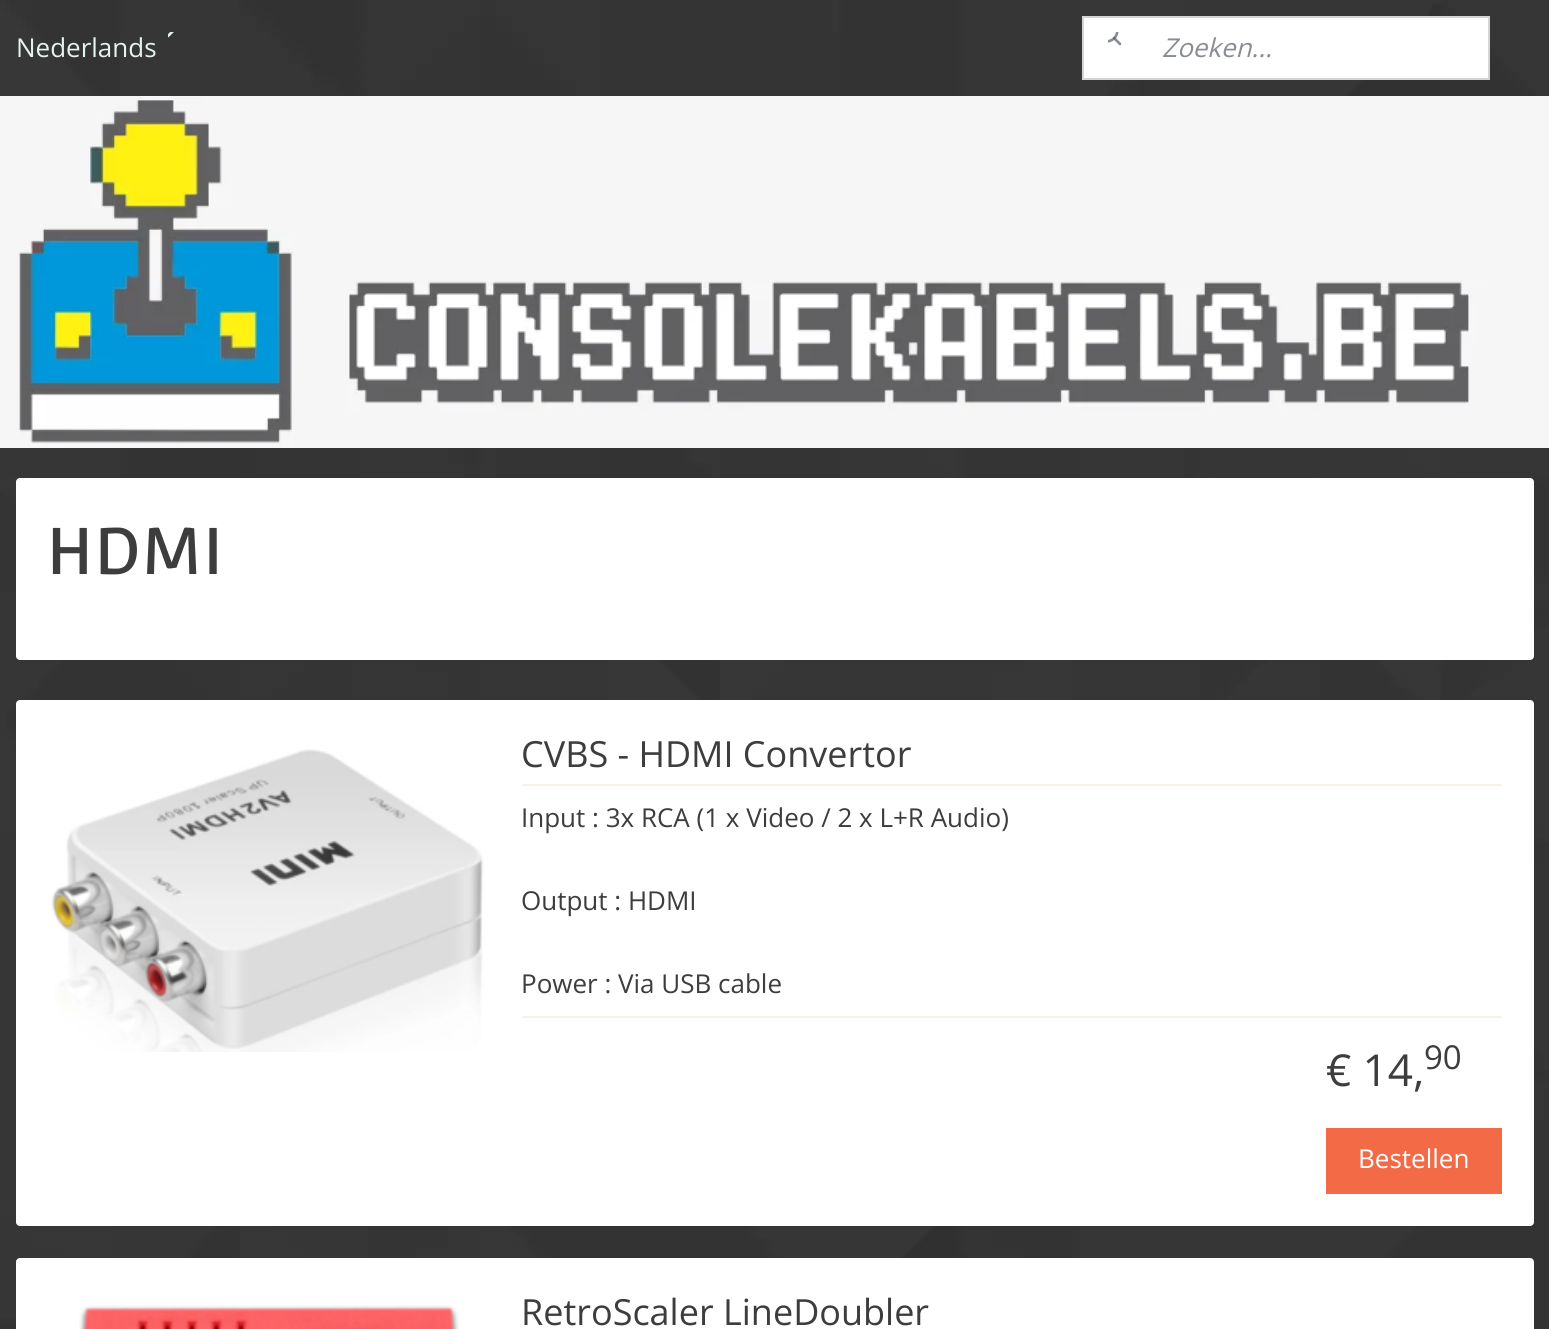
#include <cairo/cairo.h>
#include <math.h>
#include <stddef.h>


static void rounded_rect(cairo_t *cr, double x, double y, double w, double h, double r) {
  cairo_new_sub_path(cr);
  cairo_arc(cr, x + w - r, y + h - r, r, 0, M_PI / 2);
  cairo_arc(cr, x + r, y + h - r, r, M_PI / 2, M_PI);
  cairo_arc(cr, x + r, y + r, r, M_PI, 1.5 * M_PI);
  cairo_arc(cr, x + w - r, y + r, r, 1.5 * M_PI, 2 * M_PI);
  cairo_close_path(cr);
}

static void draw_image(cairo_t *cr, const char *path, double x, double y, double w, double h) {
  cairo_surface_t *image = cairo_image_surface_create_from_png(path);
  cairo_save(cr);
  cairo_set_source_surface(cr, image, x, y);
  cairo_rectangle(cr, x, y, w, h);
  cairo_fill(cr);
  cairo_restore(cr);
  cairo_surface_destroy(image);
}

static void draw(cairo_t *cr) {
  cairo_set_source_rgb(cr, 1, 1, 1);
  cairo_paint(cr);
  draw_image(cr, "images/1.png", 0, 0, 1549, 1329);
  draw_image(cr, "images/2.png", 168, 32, 6, 6);
  cairo_set_source_rgb(cr, 1, 1, 1);
  cairo_rectangle(cr, 1083, 17, 406, 62);
  cairo_fill_preserve(cr);
  cairo_set_source_rgb(cr, 211 / 255.0, 213 / 255.0, 217 / 255.0);
  cairo_stroke(cr);
  draw_image(cr, "images/3.png", 1108, 32, 14, 14);
  draw_image(cr, "images/4.png", 0, 96, 1549, 352);
  cairo_set_source_rgb(cr, 1, 1, 1);
  rounded_rect(cr, 16, 478, 1518, 182, 4);
  cairo_fill(cr);
  rounded_rect(cr, 16, 700, 1518, 526, 4);
  cairo_fill(cr);
  draw_image(cr, "images/5.png", 51, 749, 433, 303);
  cairo_set_source_rgb(cr, 247 / 255.0, 243 / 255.0, 233 / 255.0);
  cairo_rectangle(cr, 522, 784, 980, 2);
  cairo_fill(cr);
  cairo_rectangle(cr, 522, 1016, 980, 2);
  cairo_fill(cr);
  cairo_set_source_rgb(cr, 243 / 255.0, 106 / 255.0, 70 / 255.0);
  cairo_rectangle(cr, 1326, 1128, 176, 66);
  cairo_fill(cr);
  cairo_set_source_rgb(cr, 1, 1, 1);
  rounded_rect(cr, 16, 1258, 1518, 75, 4);
  cairo_fill(cr);
  draw_image(cr, "images/6.png", 79, 1305, 380, 24);
  cairo_select_font_face(cr, "Open Sans", CAIRO_FONT_SLANT_NORMAL, CAIRO_FONT_WEIGHT_NORMAL);
  cairo_set_font_size(cr, 26);
  cairo_set_source_rgb(cr, 230 / 255.0, 242 / 255.0, 238 / 255.0);
  cairo_move_to(cr, 16, 57);
  cairo_show_text(cr, "Nederlands");
  cairo_select_font_face(cr, "Open Sans", CAIRO_FONT_SLANT_ITALIC, CAIRO_FONT_WEIGHT_NORMAL);
  cairo_set_source_rgb(cr, 137 / 255.0, 140 / 255.0, 145 / 255.0);
  cairo_move_to(cr, 1162, 57);
  cairo_show_text(cr, "Zoeken...");
  cairo_select_font_face(cr, "Convergence", CAIRO_FONT_SLANT_NORMAL, CAIRO_FONT_WEIGHT_NORMAL);
  cairo_set_font_size(cr, 64);
  cairo_set_source_rgb(cr, 61 / 255.0, 61 / 255.0, 61 / 255.0);
  cairo_move_to(cr, 46, 574);
  cairo_show_text(cr, "HDMI");
  cairo_select_font_face(cr, "Open Sans", CAIRO_FONT_SLANT_NORMAL, CAIRO_FONT_WEIGHT_NORMAL);
  cairo_set_font_size(cr, 36);
  cairo_move_to(cr, 521, 767);
  cairo_show_text(cr, "CVBS - HDMI Convertor");
  cairo_set_font_size(cr, 26);
  cairo_move_to(cr, 521, 827);
  cairo_show_text(cr, "Input : 3x RCA (1 x Video / 2 x L+R Audio)");
  cairo_move_to(cr, 521, 910);
  cairo_show_text(cr, "Output : HDMI");
  cairo_move_to(cr, 521, 993);
  cairo_show_text(cr, "Power : Via USB cable");
  cairo_set_font_size(cr, 44);
  cairo_move_to(cr, 1326, 1086);
  cairo_show_text(cr, "€ 14,");
  cairo_set_font_size(cr, 33);
  cairo_move_to(cr, 1424, 1069);
  cairo_show_text(cr, "90");
  cairo_set_font_size(cr, 26);
  cairo_set_source_rgb(cr, 1, 1, 1);
  cairo_move_to(cr, 1358, 1168);
  cairo_show_text(cr, "Bestellen");
  cairo_set_font_size(cr, 36);
  cairo_set_source_rgb(cr, 61 / 255.0, 61 / 255.0, 61 / 255.0);
  cairo_move_to(cr, 521, 1325);
  cairo_show_text(cr, "RetroScaler LineDoubler");
}

int main(void) {
  cairo_surface_t *surface = cairo_image_surface_create(CAIRO_FORMAT_RGB24, 1549, 1329);
  cairo_t *cr = cairo_create(surface);
  cairo_font_options_t *options = cairo_font_options_create();
  cairo_font_options_set_hint_metrics(options, CAIRO_HINT_METRICS_OFF);
  cairo_font_options_set_hint_style(options, CAIRO_HINT_STYLE_NONE);
  cairo_set_font_options(cr, options);
  cairo_set_miter_limit(cr, 4);
  draw(cr);
  cairo_surface_write_to_png(surface, "out.png");
  cairo_font_options_destroy(options);
  cairo_destroy(cr);
  cairo_surface_destroy(surface);
  return 0;
}
